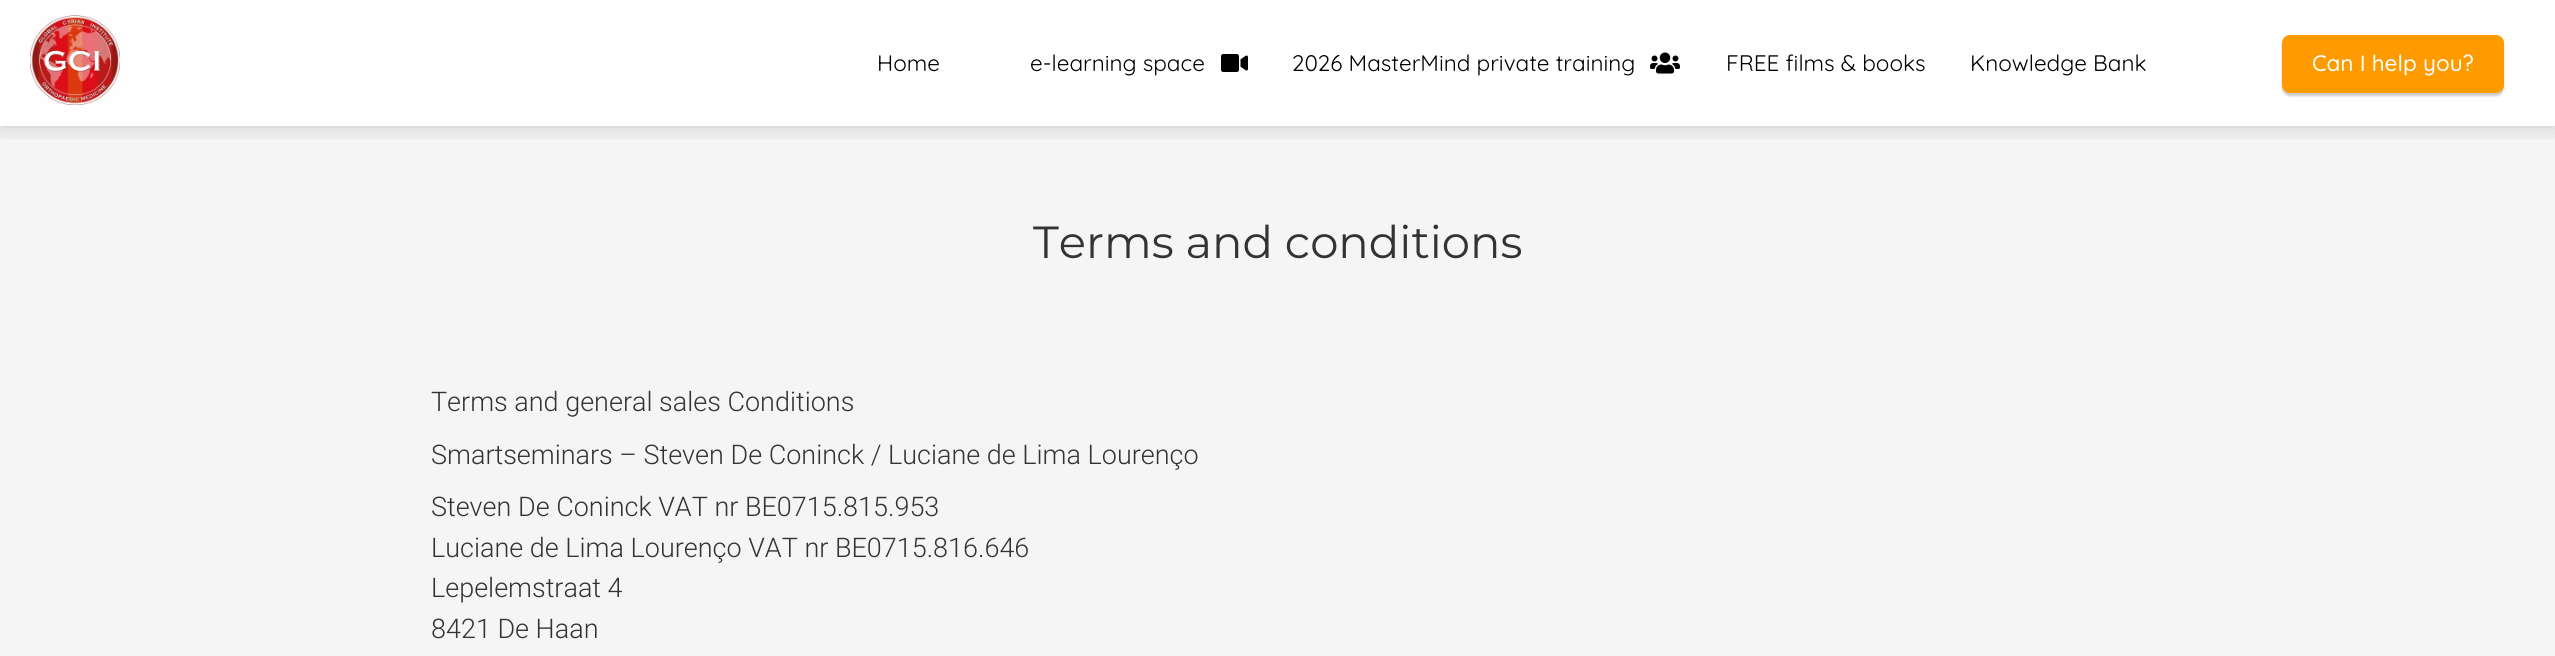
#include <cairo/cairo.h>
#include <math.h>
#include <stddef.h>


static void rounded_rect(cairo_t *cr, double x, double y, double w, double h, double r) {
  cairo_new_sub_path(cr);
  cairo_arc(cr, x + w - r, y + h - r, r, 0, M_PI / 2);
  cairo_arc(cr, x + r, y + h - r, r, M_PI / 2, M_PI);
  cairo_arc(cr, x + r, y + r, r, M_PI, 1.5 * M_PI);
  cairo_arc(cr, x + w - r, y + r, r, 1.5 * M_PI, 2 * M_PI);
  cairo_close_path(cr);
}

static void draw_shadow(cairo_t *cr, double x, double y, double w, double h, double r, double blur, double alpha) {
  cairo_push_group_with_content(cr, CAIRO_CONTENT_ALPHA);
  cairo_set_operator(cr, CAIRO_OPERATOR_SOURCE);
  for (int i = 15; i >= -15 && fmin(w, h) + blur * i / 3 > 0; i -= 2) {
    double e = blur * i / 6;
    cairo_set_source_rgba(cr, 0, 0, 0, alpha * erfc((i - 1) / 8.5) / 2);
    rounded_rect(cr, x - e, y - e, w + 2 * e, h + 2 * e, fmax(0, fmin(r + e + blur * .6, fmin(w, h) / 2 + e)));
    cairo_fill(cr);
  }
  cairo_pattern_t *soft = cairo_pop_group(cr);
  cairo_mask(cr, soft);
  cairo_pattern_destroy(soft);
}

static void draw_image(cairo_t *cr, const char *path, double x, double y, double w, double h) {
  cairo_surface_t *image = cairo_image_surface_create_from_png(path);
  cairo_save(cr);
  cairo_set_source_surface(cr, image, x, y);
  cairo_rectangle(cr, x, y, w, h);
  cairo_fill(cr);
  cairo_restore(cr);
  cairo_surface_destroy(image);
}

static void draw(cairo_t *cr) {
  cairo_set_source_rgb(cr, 1, 1, 1);
  cairo_paint(cr);
  cairo_set_source_rgb(cr, 245 / 255.0, 245 / 255.0, 245 / 255.0);
  cairo_rectangle(cr, 0, 126, 2555, 530);
  cairo_fill(cr);
  cairo_save(cr);
  cairo_rectangle(cr, 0, 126, 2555, 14);
  cairo_clip(cr);
  cairo_set_source_rgb(cr, 0, 0, 0);
  draw_shadow(cr, 0, 0, 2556, 126, 0, 11, 0.2);
  cairo_restore(cr);
  draw_image(cr, "images/1.png", 30, 15, 90, 90);
  draw_image(cr, "images/2.png", 1221, 54, 27, 18);
  draw_image(cr, "images/3.png", 1650, 52, 30, 22);
  cairo_set_source_rgb(cr, 0, 0, 0);
  draw_shadow(cr, 2282, 38, 222, 58, 8, 1, 0.2);
  cairo_set_source_rgb(cr, 1, 155 / 255.0, 0);
  rounded_rect(cr, 2282, 35, 222, 58, 8);
  cairo_fill(cr);
  cairo_select_font_face(cr, "Quicksand", CAIRO_FONT_SLANT_NORMAL, CAIRO_FONT_WEIGHT_NORMAL);
  cairo_set_font_size(cr, 22.5);
  cairo_set_source_rgb(cr, 0, 0, 0);
  cairo_move_to(cr, 877, 71);
  cairo_show_text(cr, "Home");
  cairo_move_to(cr, 1030, 71);
  cairo_show_text(cr, "e-learning space");
  cairo_move_to(cr, 1292, 71);
  cairo_show_text(cr, "2026 MasterMind private training");
  cairo_move_to(cr, 1726, 71);
  cairo_show_text(cr, "FREE films & books");
  cairo_move_to(cr, 1970, 71);
  cairo_show_text(cr, "Knowledge Bank");
  cairo_select_font_face(cr, "Quicksand Medium", CAIRO_FONT_SLANT_NORMAL, CAIRO_FONT_WEIGHT_NORMAL);
  cairo_set_source_rgb(cr, 1, 1, 1);
  cairo_move_to(cr, 2312, 71);
  cairo_show_text(cr, "Can I help you?");
  cairo_select_font_face(cr, "Montserrat Thin", CAIRO_FONT_SLANT_NORMAL, CAIRO_FONT_WEIGHT_NORMAL);
  cairo_set_font_size(cr, 45);
  cairo_set_source_rgb(cr, 51 / 255.0, 51 / 255.0, 51 / 255.0);
  cairo_move_to(cr, 1033, 258);
  cairo_show_text(cr, "Terms and conditions");
  cairo_select_font_face(cr, "Roboto Light", CAIRO_FONT_SLANT_NORMAL, CAIRO_FONT_WEIGHT_NORMAL);
  cairo_set_font_size(cr, 27);
  cairo_move_to(cr, 431, 411);
  cairo_show_text(cr, "Terms and general sales Conditions");
  cairo_move_to(cr, 431, 464);
  cairo_show_text(cr, "Smartseminars – Steven De Coninck / Luciane de Lima Lourenço");
  cairo_move_to(cr, 431, 516);
  cairo_show_text(cr, "Steven De Coninck VAT nr BE0715.815.953");
  cairo_move_to(cr, 431, 557);
  cairo_show_text(cr, "Luciane de Lima Lourenço VAT nr BE0715.816.646");
  cairo_move_to(cr, 431, 597);
  cairo_show_text(cr, "Lepelemstraat 4");
  cairo_move_to(cr, 431, 638);
  cairo_show_text(cr, "8421 De Haan");
}

int main(void) {
  cairo_surface_t *surface = cairo_image_surface_create(CAIRO_FORMAT_RGB24, 2555, 656);
  cairo_t *cr = cairo_create(surface);
  cairo_font_options_t *options = cairo_font_options_create();
  cairo_font_options_set_hint_metrics(options, CAIRO_HINT_METRICS_OFF);
  cairo_font_options_set_hint_style(options, CAIRO_HINT_STYLE_NONE);
  cairo_set_font_options(cr, options);
  cairo_set_miter_limit(cr, 4);
  draw(cr);
  cairo_surface_write_to_png(surface, "out.png");
  cairo_font_options_destroy(options);
  cairo_destroy(cr);
  cairo_surface_destroy(surface);
  return 0;
}
